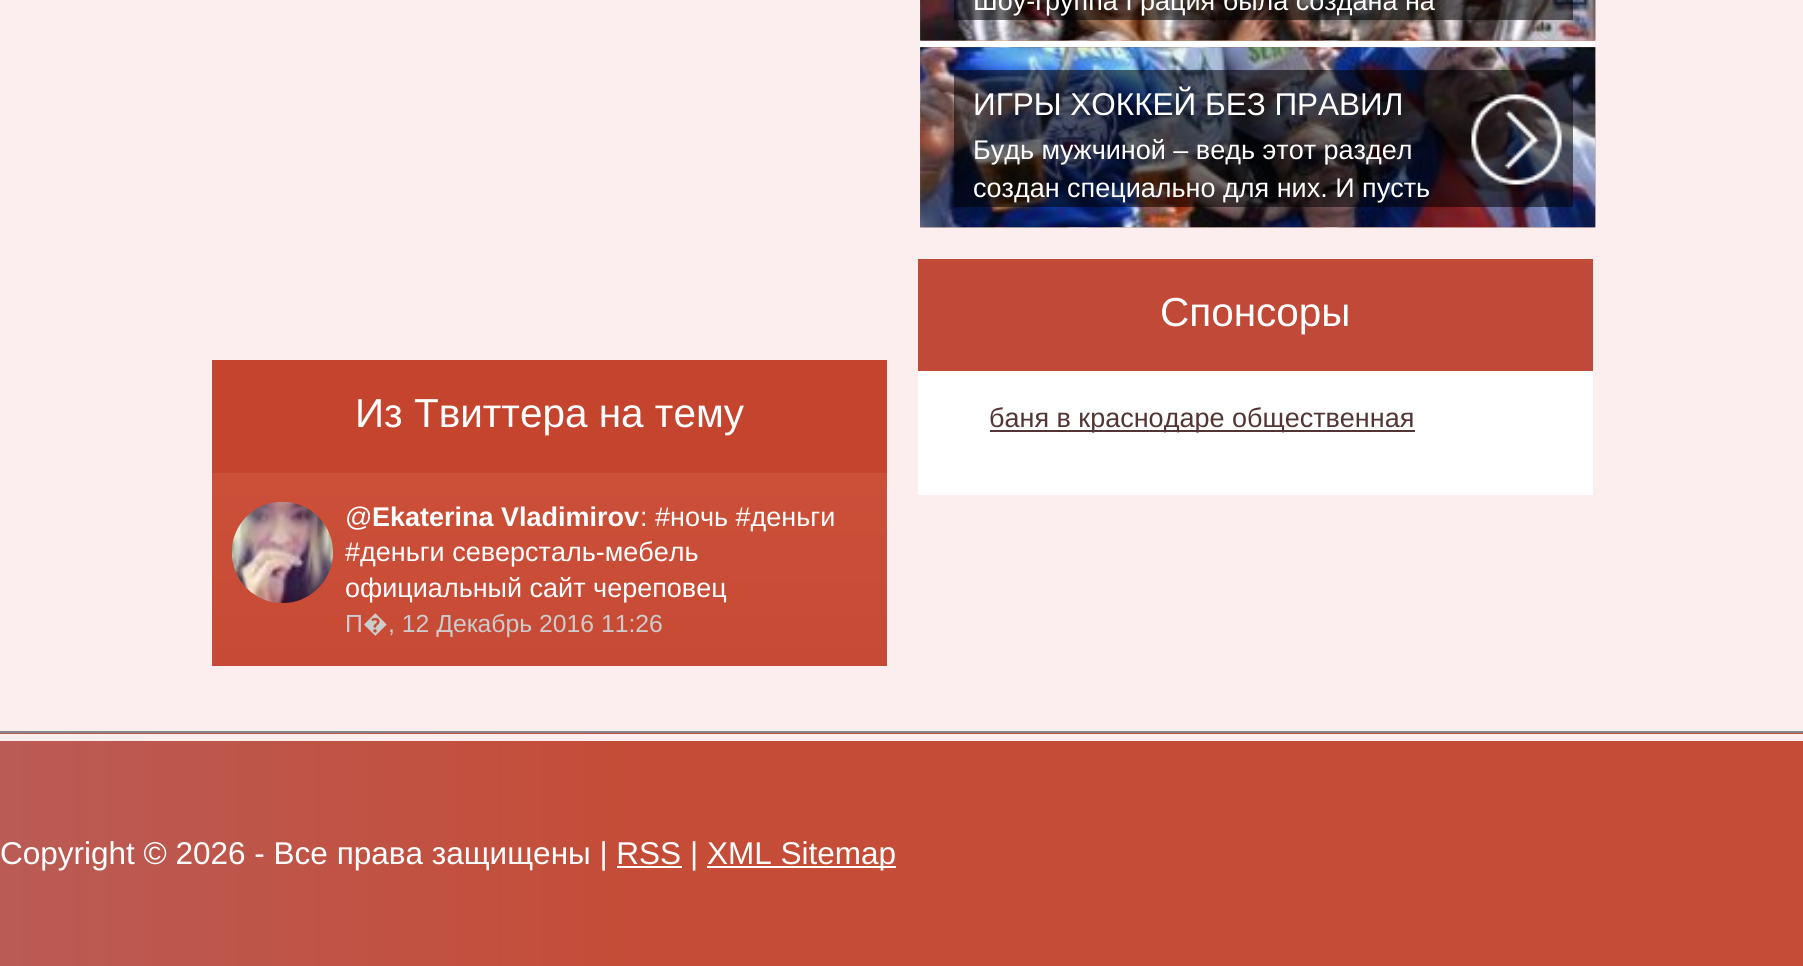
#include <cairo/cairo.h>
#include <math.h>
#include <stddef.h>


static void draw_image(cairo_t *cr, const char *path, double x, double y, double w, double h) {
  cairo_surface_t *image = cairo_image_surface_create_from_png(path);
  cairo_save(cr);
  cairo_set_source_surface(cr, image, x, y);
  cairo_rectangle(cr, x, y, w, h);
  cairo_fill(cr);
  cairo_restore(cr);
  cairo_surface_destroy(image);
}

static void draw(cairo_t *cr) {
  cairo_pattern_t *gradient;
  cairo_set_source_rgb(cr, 252 / 255.0, 238 / 255.0, 238 / 255.0);
  cairo_paint(cr);
  cairo_set_source_rgb(cr, 1, 1, 1);
  cairo_rectangle(cr, 920, 0, 675, 227);
  cairo_fill(cr);
  draw_image(cr, "images/1.png", 920, 0, 676, 41);
  draw_image(cr, "images/2.png", 920, 0, 676, 41);
  cairo_set_source_rgba(cr, 0, 0, 0, 0.55);
  cairo_rectangle(cr, 954, 0, 619, 20);
  cairo_fill(cr);
  draw_image(cr, "images/3.png", 920, 47, 676, 181);
  draw_image(cr, "images/4.png", 920, 47, 676, 181);
  cairo_rectangle(cr, 954, 70, 619, 137);
  cairo_fill(cr);
  draw_image(cr, "images/5.png", 1471, 94, 92, 91);
  cairo_set_source_rgb(cr, 1, 1, 1);
  cairo_rectangle(cr, 918, 371, 675, 124);
  cairo_fill(cr);
  cairo_set_source_rgb(cr, 193 / 255.0, 73 / 255.0, 56 / 255.0);
  cairo_rectangle(cr, 918, 259, 675, 112);
  cairo_fill(cr);
  cairo_set_source_rgb(cr, 84 / 255.0, 53 / 255.0, 53 / 255.0);
  cairo_rectangle(cr, 990, 430, 425, 2);
  cairo_fill(cr);
  gradient = cairo_pattern_create_linear(549, 360, 549, 666);
  cairo_pattern_add_color_stop_rgba(gradient, 0, 207 / 255.0, 83 / 255.0, 57 / 255.0, 1);
  cairo_pattern_add_color_stop_rgba(gradient, 1, 199 / 255.0, 74 / 255.0, 54 / 255.0, 1);
  cairo_set_source(cr, gradient);
  cairo_pattern_destroy(gradient);
  cairo_rectangle(cr, 212, 473, 675, 193);
  cairo_fill(cr);
  cairo_set_source_rgb(cr, 196 / 255.0, 68 / 255.0, 45 / 255.0);
  cairo_rectangle(cr, 212, 360, 675, 113);
  cairo_fill(cr);
  draw_image(cr, "images/6.png", 231, 501, 102, 102);
  gradient = cairo_pattern_create_linear(0, 851, 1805, 851);
  cairo_pattern_add_color_stop_rgba(gradient, 0, 186 / 255.0, 91 / 255.0, 85 / 255.0, 1);
  cairo_pattern_add_color_stop_rgba(gradient, 0.36, 197 / 255.0, 76 / 255.0, 55 / 255.0, 1);
  cairo_set_source(cr, gradient);
  cairo_pattern_destroy(gradient);
  cairo_rectangle(cr, 0, 733, 1803, 233);
  cairo_fill(cr);
  cairo_set_source_rgb(cr, 133 / 255.0, 133 / 255.0, 141 / 255.0);
  cairo_rectangle(cr, 0, 731, 1803, 2);
  cairo_fill(cr);
  cairo_set_source_rgb(cr, 252 / 255.0, 238 / 255.0, 238 / 255.0);
  cairo_rectangle(cr, 0, 734, 1803, 7);
  cairo_fill(cr);
  cairo_set_source_rgb(cr, 1, 1, 1);
  cairo_rectangle(cr, 707, 866, 189, 2);
  cairo_fill(cr);
  cairo_rectangle(cr, 617, 866, 65, 2);
  cairo_fill(cr);
  cairo_select_font_face(cr, "Liberation Sans", CAIRO_FONT_SLANT_NORMAL, CAIRO_FONT_WEIGHT_NORMAL);
  cairo_set_font_size(cr, 27);
  cairo_move_to(cr, 973, 10);
  cairo_show_text(cr, "Шоу-группа Грация была создана на");
  cairo_set_font_size(cr, 31.5);
  cairo_move_to(cr, 973, 115);
  cairo_show_text(cr, "ИГРЫ ХОККЕЙ БЕЗ ПРАВИЛ");
  cairo_set_font_size(cr, 27);
  cairo_move_to(cr, 973, 159);
  cairo_show_text(cr, "Будь мужчиной – ведь этот раздел");
  cairo_move_to(cr, 973, 197);
  cairo_show_text(cr, "создан специально для них. И пусть");
  cairo_set_font_size(cr, 40.5);
  cairo_move_to(cr, 1160, 326);
  cairo_show_text(cr, "Спонсоры");
  cairo_set_font_size(cr, 27);
  cairo_set_source_rgb(cr, 84 / 255.0, 53 / 255.0, 53 / 255.0);
  cairo_move_to(cr, 989, 427);
  cairo_show_text(cr, "баня в краснодаре общественная");
  cairo_set_font_size(cr, 40.5);
  cairo_set_source_rgb(cr, 1, 1, 1);
  cairo_move_to(cr, 355, 427);
  cairo_show_text(cr, "Из Твиттера на тему");
  cairo_set_font_size(cr, 27);
  cairo_move_to(cr, 345, 526);
  cairo_show_text(cr, "@");
  cairo_select_font_face(cr, "Liberation Sans", CAIRO_FONT_SLANT_NORMAL, CAIRO_FONT_WEIGHT_BOLD);
  cairo_move_to(cr, 372, 526);
  cairo_show_text(cr, "Ekaterina Vladimirov");
  cairo_select_font_face(cr, "Liberation Sans", CAIRO_FONT_SLANT_NORMAL, CAIRO_FONT_WEIGHT_NORMAL);
  cairo_move_to(cr, 640, 526);
  cairo_show_text(cr, ": #ночь #деньги");
  cairo_move_to(cr, 345, 561);
  cairo_show_text(cr, "#деньги северсталь-мебель");
  cairo_move_to(cr, 345, 597);
  cairo_show_text(cr, "официальный сайт череповец");
  cairo_set_font_size(cr, 24.75);
  cairo_set_source_rgb(cr, 204 / 255.0, 204 / 255.0, 204 / 255.0);
  cairo_move_to(cr, 345, 632);
  cairo_show_text(cr, "П");
  cairo_select_font_face(cr, "Noto Sans", CAIRO_FONT_SLANT_NORMAL, CAIRO_FONT_WEIGHT_NORMAL);
  cairo_move_to(cr, 363, 632);
  cairo_show_text(cr, "�");
  cairo_select_font_face(cr, "Liberation Sans", CAIRO_FONT_SLANT_NORMAL, CAIRO_FONT_WEIGHT_NORMAL);
  cairo_move_to(cr, 388, 632);
  cairo_show_text(cr, ", 12 Декабрь 2016 11:26");
  cairo_set_font_size(cr, 31.5);
  cairo_set_source_rgb(cr, 1, 1, 1);
  cairo_move_to(cr, 0, 864);
  cairo_show_text(cr, "Copyright © 2026 - Все права защищены | RSS |");
  cairo_move_to(cr, 707, 864);
  cairo_show_text(cr, "XML Sitemap");
}

int main(void) {
  cairo_surface_t *surface = cairo_image_surface_create(CAIRO_FORMAT_RGB24, 1803, 966);
  cairo_t *cr = cairo_create(surface);
  cairo_font_options_t *options = cairo_font_options_create();
  cairo_font_options_set_hint_metrics(options, CAIRO_HINT_METRICS_OFF);
  cairo_font_options_set_hint_style(options, CAIRO_HINT_STYLE_NONE);
  cairo_set_font_options(cr, options);
  cairo_set_miter_limit(cr, 4);
  draw(cr);
  cairo_surface_write_to_png(surface, "out.png");
  cairo_font_options_destroy(options);
  cairo_destroy(cr);
  cairo_surface_destroy(surface);
  return 0;
}
